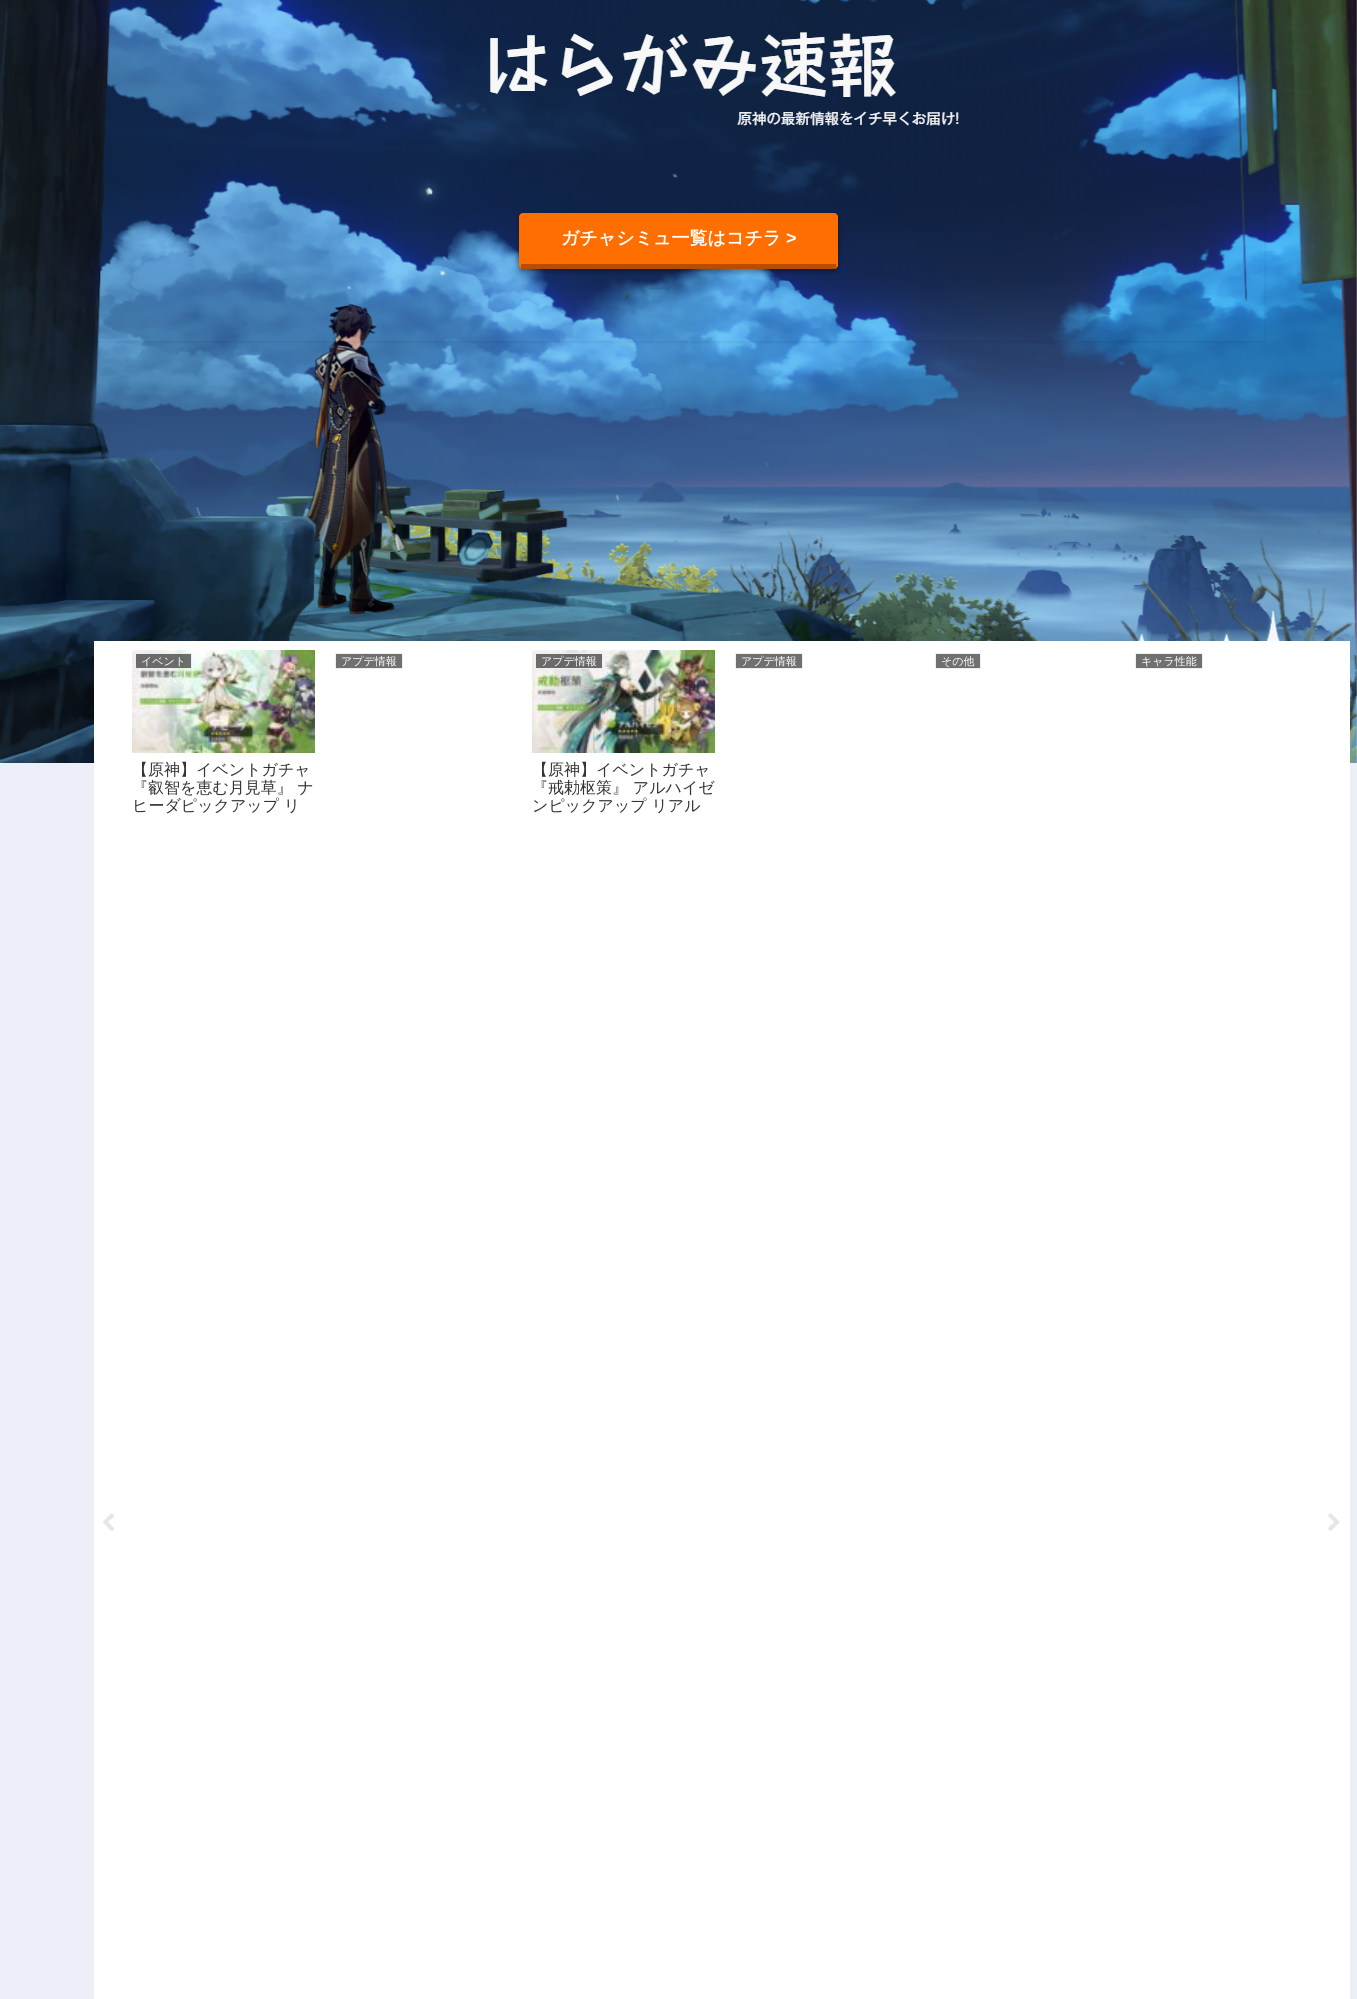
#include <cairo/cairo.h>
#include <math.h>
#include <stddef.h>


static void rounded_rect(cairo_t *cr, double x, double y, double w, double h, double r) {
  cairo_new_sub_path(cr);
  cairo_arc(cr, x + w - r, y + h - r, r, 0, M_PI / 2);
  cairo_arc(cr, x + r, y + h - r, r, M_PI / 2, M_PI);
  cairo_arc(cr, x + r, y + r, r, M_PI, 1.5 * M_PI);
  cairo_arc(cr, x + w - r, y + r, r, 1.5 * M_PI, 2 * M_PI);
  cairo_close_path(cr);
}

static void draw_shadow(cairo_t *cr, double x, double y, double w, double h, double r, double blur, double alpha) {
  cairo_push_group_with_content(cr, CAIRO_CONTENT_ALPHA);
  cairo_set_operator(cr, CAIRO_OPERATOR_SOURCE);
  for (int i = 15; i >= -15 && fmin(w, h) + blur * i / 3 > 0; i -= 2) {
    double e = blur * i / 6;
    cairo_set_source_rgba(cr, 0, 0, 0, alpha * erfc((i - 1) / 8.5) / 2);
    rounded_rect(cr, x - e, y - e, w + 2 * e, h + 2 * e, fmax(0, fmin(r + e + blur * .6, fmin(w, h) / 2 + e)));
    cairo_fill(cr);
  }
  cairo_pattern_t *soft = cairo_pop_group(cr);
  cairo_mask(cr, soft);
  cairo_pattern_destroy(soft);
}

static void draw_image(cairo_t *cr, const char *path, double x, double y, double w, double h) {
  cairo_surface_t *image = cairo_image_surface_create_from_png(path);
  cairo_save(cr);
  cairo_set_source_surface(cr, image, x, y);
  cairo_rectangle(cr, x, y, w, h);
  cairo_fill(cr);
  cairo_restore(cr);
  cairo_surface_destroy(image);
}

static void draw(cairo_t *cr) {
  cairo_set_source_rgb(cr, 236 / 255.0, 238 / 255.0, 248 / 255.0);
  cairo_paint(cr);
  draw_image(cr, "images/1.png", 0, 0, 1357, 763);
  draw_image(cr, "images/2.png", 490, 32, 469, 94);
  cairo_save(cr);
  cairo_set_fill_rule(cr, CAIRO_FILL_RULE_EVEN_ODD);
  cairo_new_path(cr);
  cairo_move_to(cr, 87, 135);
  cairo_line_to(cr, 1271, 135);
  cairo_line_to(cr, 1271, 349);
  cairo_line_to(cr, 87, 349);
  cairo_close_path(cr);
  cairo_move_to(cr, 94, 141);
  cairo_line_to(cr, 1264, 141);
  cairo_line_to(cr, 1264, 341);
  cairo_line_to(cr, 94, 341);
  cairo_close_path(cr);
  cairo_clip(cr);
  cairo_set_source_rgb(cr, 0, 0, 0);
  draw_shadow(cr, 94, 142, 1170, 200, 0, 2, 0.1);
  cairo_restore(cr);
  cairo_set_source_rgb(cr, 0, 0, 0);
  draw_shadow(cr, 519, 216, 319, 56, 4, 2.5, 0.3);
  cairo_set_source_rgb(cr, 1, 110 / 255.0, 0);
  rounded_rect(cr, 519, 213, 319, 56, 4);
  cairo_fill(cr);
  cairo_set_source_rgb(cr, 184 / 255.0, 76 / 255.0, 0);
  cairo_rectangle(cr, 521, 264, 315, 5);
  cairo_fill(cr);
  cairo_set_source_rgb(cr, 1, 1, 1);
  cairo_rectangle(cr, 94, 641, 1256, 1358);
  cairo_fill(cr);
  draw_image(cr, "images/3.png", 132, 650, 183, 103);
  cairo_set_source_rgba(cr, 51 / 255.0, 51 / 255.0, 51 / 255.0, 0.7);
  cairo_rectangle(cr, 135.5, 653.5, 56, 15);
  cairo_fill_preserve(cr);
  cairo_set_source_rgb(cr, 238 / 255.0, 238 / 255.0, 238 / 255.0);
  cairo_set_line_width(cr, 1);
  cairo_stroke(cr);
  cairo_set_source_rgb(cr, 112 / 255.0, 112 / 255.0, 112 / 255.0);
  cairo_rectangle(cr, 335.5, 653.5, 67, 15);
  cairo_fill_preserve(cr);
  cairo_set_source_rgb(cr, 238 / 255.0, 238 / 255.0, 238 / 255.0);
  cairo_stroke(cr);
  draw_image(cr, "images/4.png", 532, 650, 183, 103);
  cairo_set_source_rgba(cr, 51 / 255.0, 51 / 255.0, 51 / 255.0, 0.7);
  cairo_rectangle(cr, 535.5, 653.5, 67, 15);
  cairo_fill_preserve(cr);
  cairo_set_source_rgb(cr, 238 / 255.0, 238 / 255.0, 238 / 255.0);
  cairo_stroke(cr);
  cairo_set_source_rgb(cr, 112 / 255.0, 112 / 255.0, 112 / 255.0);
  cairo_rectangle(cr, 735.5, 653.5, 67, 15);
  cairo_fill_preserve(cr);
  cairo_set_source_rgb(cr, 238 / 255.0, 238 / 255.0, 238 / 255.0);
  cairo_stroke(cr);
  cairo_set_source_rgb(cr, 112 / 255.0, 112 / 255.0, 112 / 255.0);
  cairo_rectangle(cr, 935.5, 653.5, 45, 15);
  cairo_fill_preserve(cr);
  cairo_set_source_rgb(cr, 238 / 255.0, 238 / 255.0, 238 / 255.0);
  cairo_stroke(cr);
  cairo_set_source_rgb(cr, 112 / 255.0, 112 / 255.0, 112 / 255.0);
  cairo_rectangle(cr, 1135.5, 653.5, 67, 15);
  cairo_fill_preserve(cr);
  cairo_set_source_rgb(cr, 238 / 255.0, 238 / 255.0, 238 / 255.0);
  cairo_stroke(cr);
  draw_image(cr, "images/5.png", 103, 1513, 12, 18);
  draw_image(cr, "images/6.png", 1328, 1513, 12, 18);
  cairo_select_font_face(cr, "WenQuanYi Zen Hei", CAIRO_FONT_SLANT_NORMAL, CAIRO_FONT_WEIGHT_BOLD);
  cairo_set_font_size(cr, 18);
  cairo_set_source_rgb(cr, 1, 1, 1);
  cairo_move_to(cr, 561, 244);
  cairo_show_text(cr, "ガチャシミュ一覧はコチラ");
  cairo_select_font_face(cr, "Liberation Sans", CAIRO_FONT_SLANT_NORMAL, CAIRO_FONT_WEIGHT_BOLD);
  cairo_move_to(cr, 786, 244);
  cairo_show_text(cr, ">");
  cairo_select_font_face(cr, "WenQuanYi Zen Hei Medium", CAIRO_FONT_SLANT_NORMAL, CAIRO_FONT_WEIGHT_NORMAL);
  cairo_set_font_size(cr, 11);
  cairo_move_to(cr, 141, 665);
  cairo_show_text(cr, "イベント");
  cairo_set_font_size(cr, 16);
  cairo_set_source_rgb(cr, 51 / 255.0, 51 / 255.0, 51 / 255.0);
  cairo_move_to(cr, 132, 775);
  cairo_show_text(cr, "【原神】イベントガチャ");
  cairo_move_to(cr, 132, 793);
  cairo_show_text(cr, "『叡智を恵む月見草』 ナ");
  cairo_move_to(cr, 132, 811);
  cairo_show_text(cr, "ヒーダピックアップ リ");
  cairo_set_font_size(cr, 11);
  cairo_set_source_rgb(cr, 1, 1, 1);
  cairo_move_to(cr, 341, 665);
  cairo_show_text(cr, "アプデ情報");
  cairo_move_to(cr, 541, 665);
  cairo_show_text(cr, "アプデ情報");
  cairo_set_font_size(cr, 16);
  cairo_set_source_rgb(cr, 51 / 255.0, 51 / 255.0, 51 / 255.0);
  cairo_move_to(cr, 532, 775);
  cairo_show_text(cr, "【原神】イベントガチャ");
  cairo_move_to(cr, 532, 793);
  cairo_show_text(cr, "『戒勅枢策』 アルハイゼ");
  cairo_move_to(cr, 532, 811);
  cairo_show_text(cr, "ンピックアップ リアル");
  cairo_set_font_size(cr, 11);
  cairo_set_source_rgb(cr, 1, 1, 1);
  cairo_move_to(cr, 741, 665);
  cairo_show_text(cr, "アプデ情報");
  cairo_move_to(cr, 941, 665);
  cairo_show_text(cr, "その他");
  cairo_move_to(cr, 1141, 665);
  cairo_show_text(cr, "キャラ性能");
}

int main(void) {
  cairo_surface_t *surface = cairo_image_surface_create(CAIRO_FORMAT_RGB24, 1357, 1999);
  cairo_t *cr = cairo_create(surface);
  cairo_font_options_t *options = cairo_font_options_create();
  cairo_font_options_set_hint_metrics(options, CAIRO_HINT_METRICS_OFF);
  cairo_font_options_set_hint_style(options, CAIRO_HINT_STYLE_NONE);
  cairo_set_font_options(cr, options);
  cairo_set_miter_limit(cr, 4);
  draw(cr);
  cairo_surface_write_to_png(surface, "out.png");
  cairo_font_options_destroy(options);
  cairo_destroy(cr);
  cairo_surface_destroy(surface);
  return 0;
}
